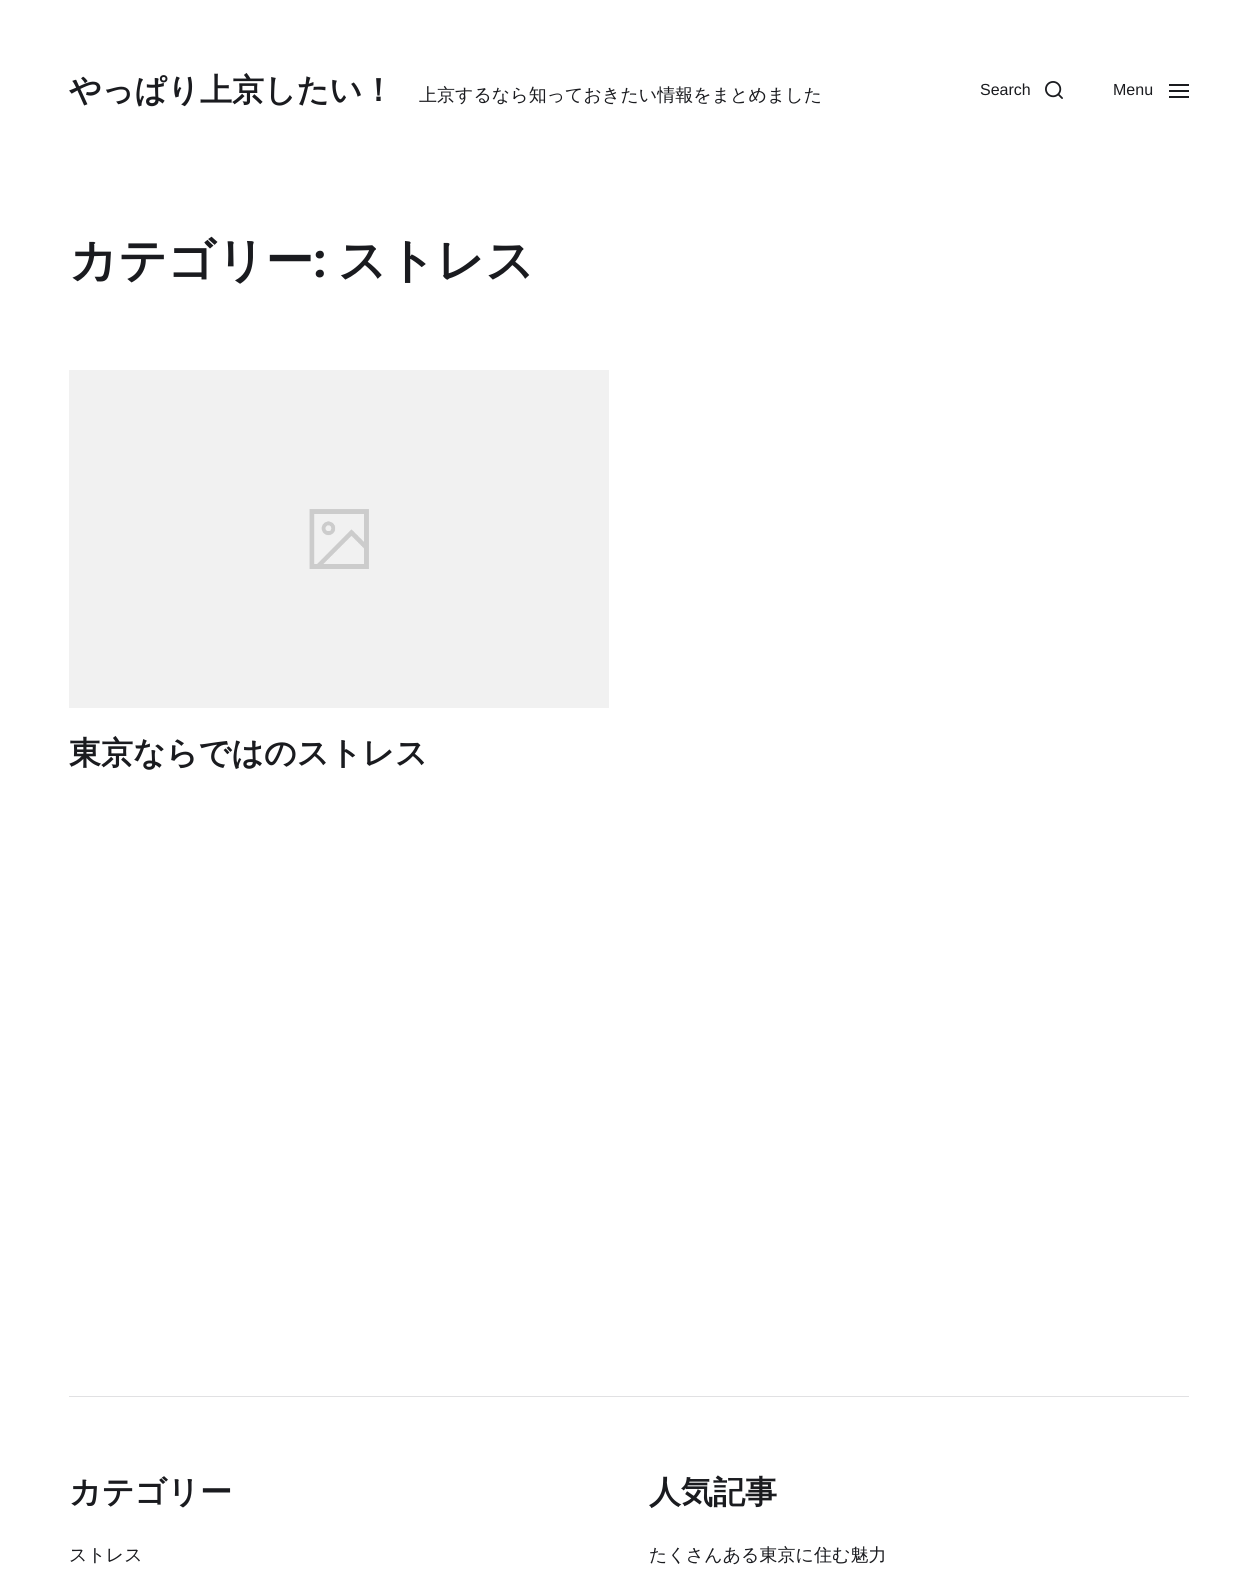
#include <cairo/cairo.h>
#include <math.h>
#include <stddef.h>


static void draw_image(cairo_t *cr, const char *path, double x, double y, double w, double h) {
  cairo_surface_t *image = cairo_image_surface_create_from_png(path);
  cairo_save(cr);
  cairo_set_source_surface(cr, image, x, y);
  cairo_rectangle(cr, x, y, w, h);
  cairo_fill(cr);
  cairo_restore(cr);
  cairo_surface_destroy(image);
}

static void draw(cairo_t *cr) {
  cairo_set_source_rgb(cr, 1, 1, 1);
  cairo_paint(cr);
  draw_image(cr, "images/1.png", 1045, 81, 18, 18);
  cairo_set_source_rgb(cr, 26 / 255.0, 27 / 255.0, 31 / 255.0);
  cairo_rectangle(cr, 1169, 84, 20, 2);
  cairo_fill(cr);
  cairo_rectangle(cr, 1169, 90, 20, 2);
  cairo_fill(cr);
  cairo_rectangle(cr, 1169, 96, 20, 2);
  cairo_fill(cr);
  draw_image(cr, "images/2.png", 69, 370, 540, 338);
  cairo_set_source_rgb(cr, 225 / 255.0, 225 / 255.0, 227 / 255.0);
  cairo_rectangle(cr, 69, 1396, 1120, 1);
  cairo_fill(cr);
  cairo_select_font_face(cr, "WenQuanYi Zen Hei", CAIRO_FONT_SLANT_NORMAL, CAIRO_FONT_WEIGHT_BOLD);
  cairo_set_font_size(cr, 32);
  cairo_set_source_rgb(cr, 26 / 255.0, 27 / 255.0, 31 / 255.0);
  cairo_move_to(cr, 69, 101);
  cairo_show_text(cr, "やっぱり上京したい！");
  cairo_select_font_face(cr, "WenQuanYi Zen Hei Medium", CAIRO_FONT_SLANT_NORMAL, CAIRO_FONT_WEIGHT_NORMAL);
  cairo_set_font_size(cr, 18);
  cairo_move_to(cr, 419, 101);
  cairo_show_text(cr, "上京するなら知っておきたい情報をまとめました");
  cairo_select_font_face(cr, "Liberation Sans", CAIRO_FONT_SLANT_NORMAL, CAIRO_FONT_WEIGHT_NORMAL);
  cairo_set_font_size(cr, 16);
  cairo_move_to(cr, 980, 95);
  cairo_show_text(cr, "Search");
  cairo_move_to(cr, 1113, 95);
  cairo_show_text(cr, "Menu");
  cairo_select_font_face(cr, "WenQuanYi Zen Hei", CAIRO_FONT_SLANT_NORMAL, CAIRO_FONT_WEIGHT_BOLD);
  cairo_set_font_size(cr, 48);
  cairo_move_to(cr, 69, 277);
  cairo_show_text(cr, "カテゴリー");
  cairo_select_font_face(cr, "Merriweather", CAIRO_FONT_SLANT_NORMAL, CAIRO_FONT_WEIGHT_BOLD);
  cairo_move_to(cr, 313, 277);
  cairo_show_text(cr, ":");
  cairo_select_font_face(cr, "WenQuanYi Zen Hei", CAIRO_FONT_SLANT_NORMAL, CAIRO_FONT_WEIGHT_BOLD);
  cairo_move_to(cr, 338, 277);
  cairo_show_text(cr, "ストレス");
  cairo_set_font_size(cr, 32);
  cairo_move_to(cr, 69, 764);
  cairo_show_text(cr, "東京ならではのストレス");
  cairo_move_to(cr, 69, 1503);
  cairo_show_text(cr, "カテゴリー");
  cairo_select_font_face(cr, "WenQuanYi Zen Hei Medium", CAIRO_FONT_SLANT_NORMAL, CAIRO_FONT_WEIGHT_NORMAL);
  cairo_set_font_size(cr, 18);
  cairo_move_to(cr, 69, 1561);
  cairo_show_text(cr, "ストレス");
  cairo_select_font_face(cr, "WenQuanYi Zen Hei", CAIRO_FONT_SLANT_NORMAL, CAIRO_FONT_WEIGHT_BOLD);
  cairo_set_font_size(cr, 32);
  cairo_move_to(cr, 649, 1503);
  cairo_show_text(cr, "人気記事");
  cairo_select_font_face(cr, "WenQuanYi Zen Hei Medium", CAIRO_FONT_SLANT_NORMAL, CAIRO_FONT_WEIGHT_NORMAL);
  cairo_set_font_size(cr, 18);
  cairo_move_to(cr, 649, 1561);
  cairo_show_text(cr, "たくさんある東京に住む魅力");
}

int main(void) {
  cairo_surface_t *surface = cairo_image_surface_create(CAIRO_FORMAT_RGB24, 1257, 1580);
  cairo_t *cr = cairo_create(surface);
  cairo_font_options_t *options = cairo_font_options_create();
  cairo_font_options_set_hint_metrics(options, CAIRO_HINT_METRICS_OFF);
  cairo_font_options_set_hint_style(options, CAIRO_HINT_STYLE_NONE);
  cairo_set_font_options(cr, options);
  cairo_set_miter_limit(cr, 4);
  draw(cr);
  cairo_surface_write_to_png(surface, "out.png");
  cairo_font_options_destroy(options);
  cairo_destroy(cr);
  cairo_surface_destroy(surface);
  return 0;
}
